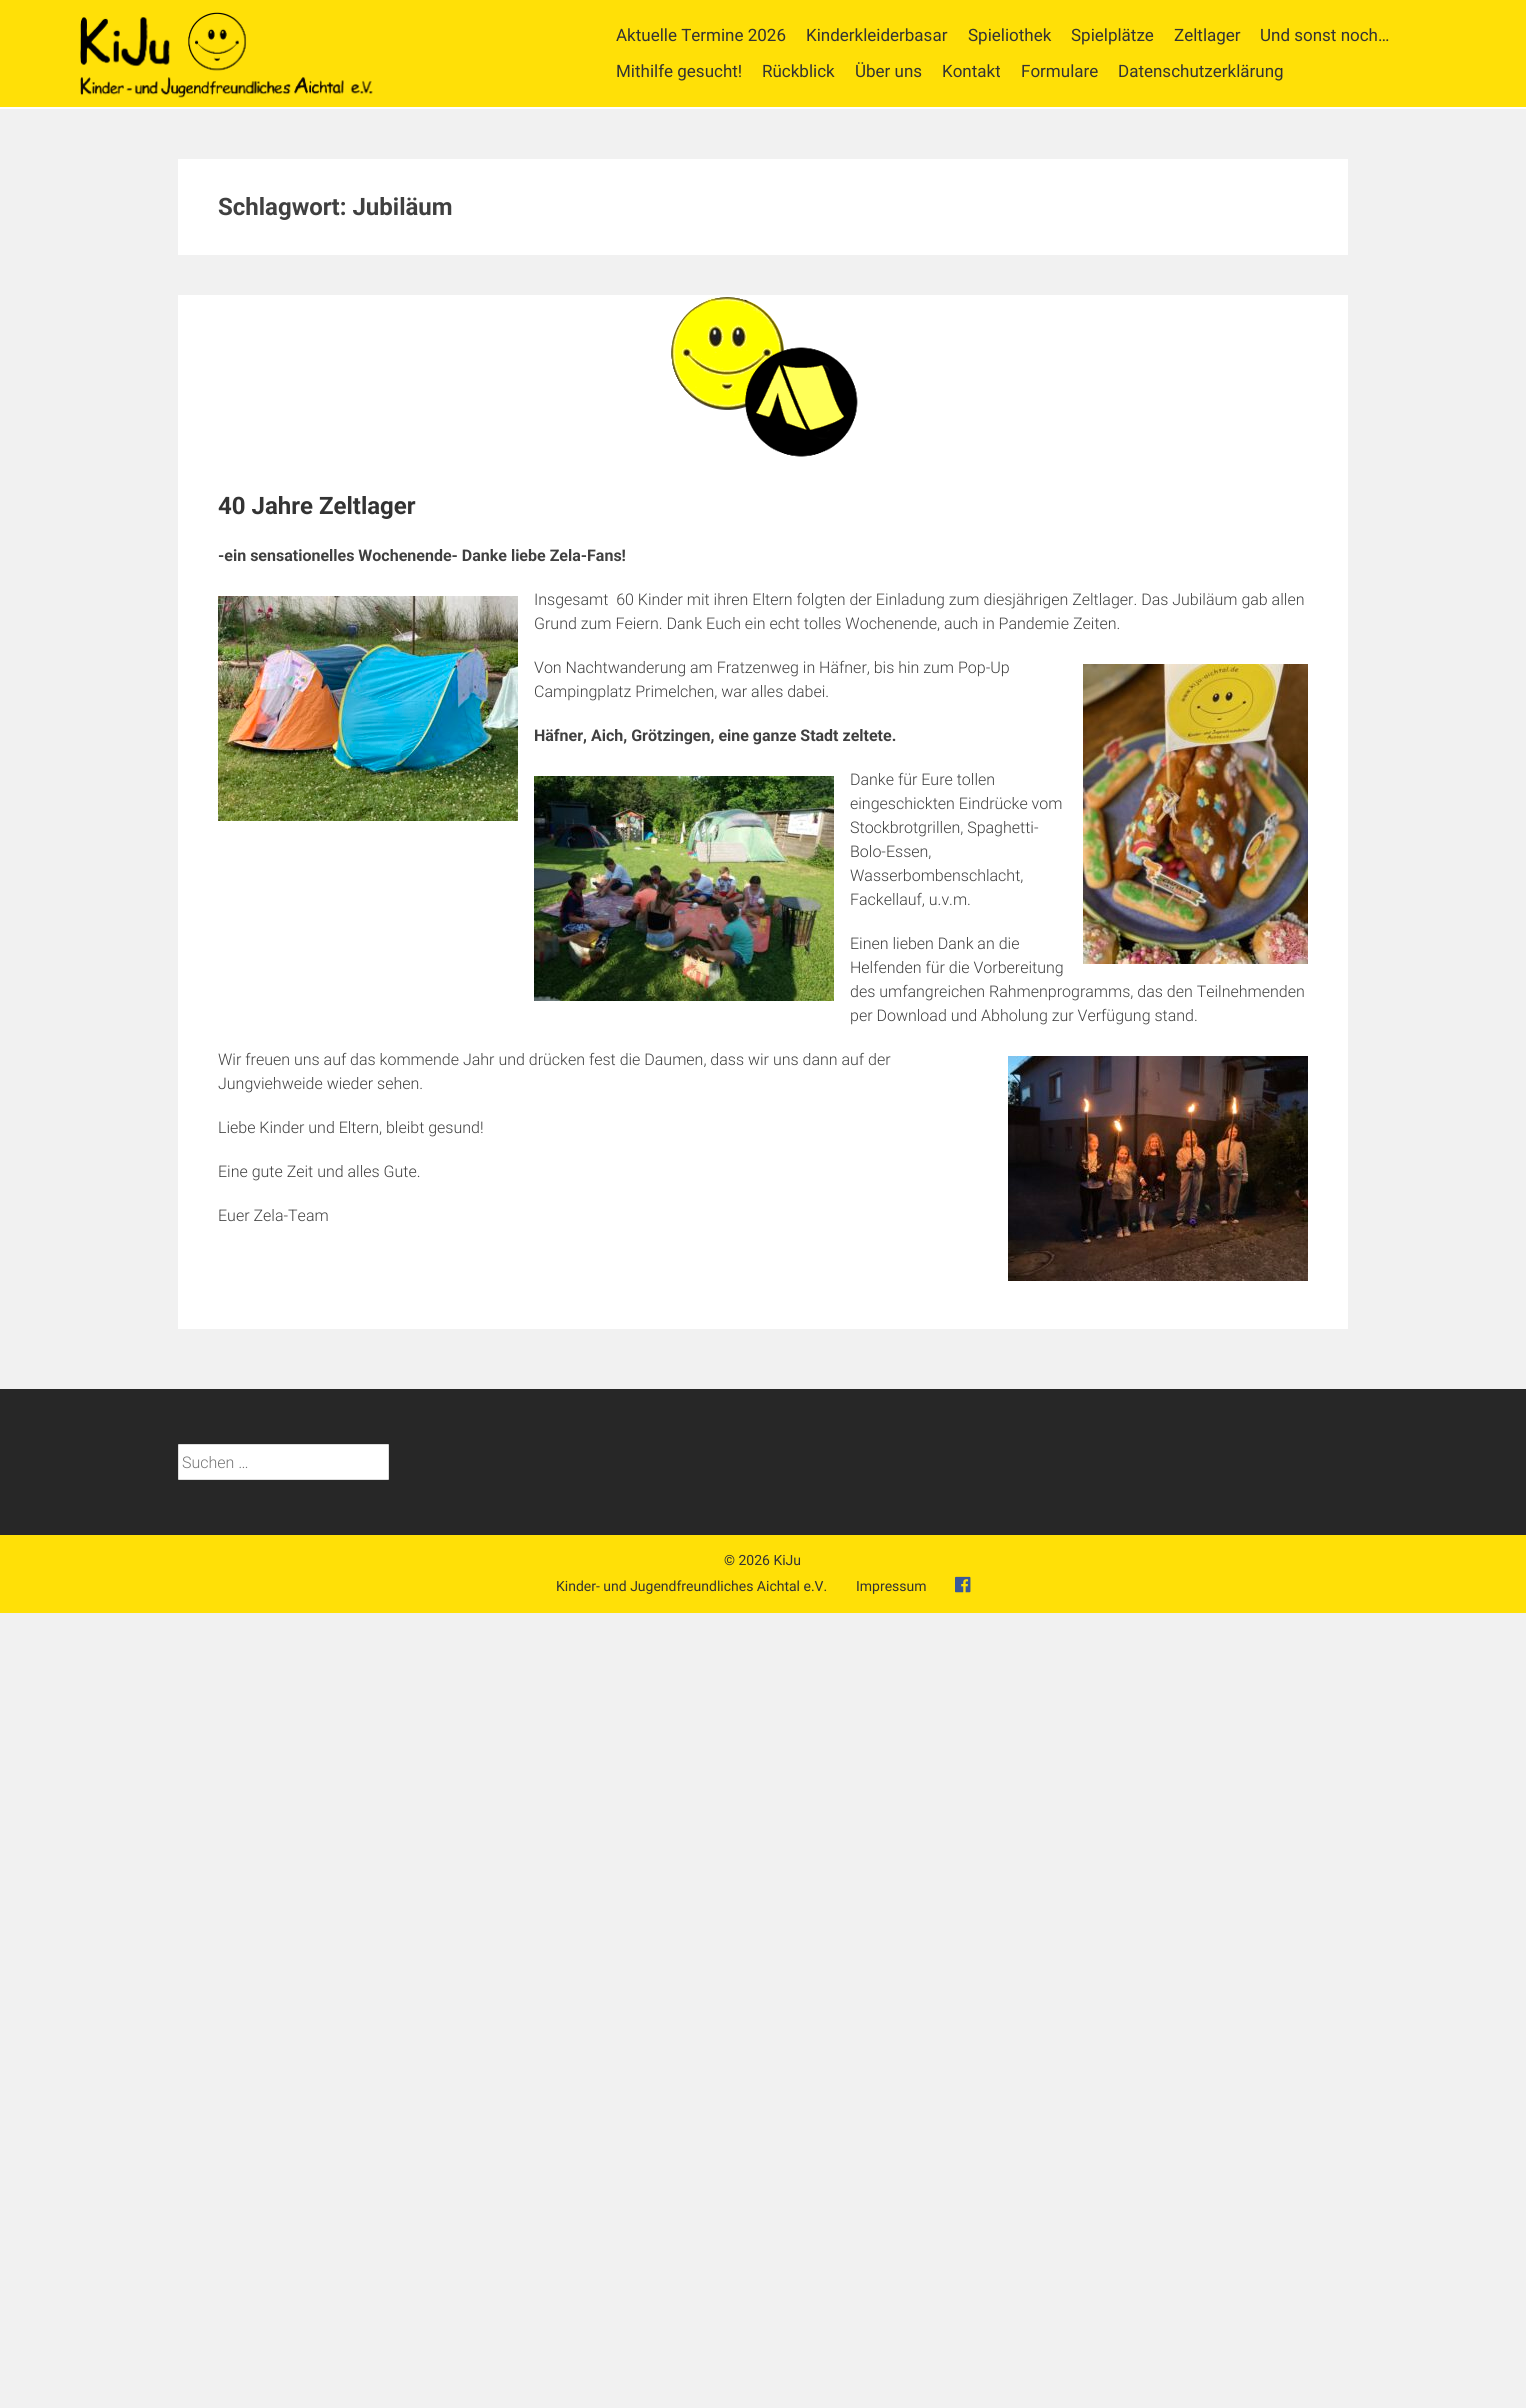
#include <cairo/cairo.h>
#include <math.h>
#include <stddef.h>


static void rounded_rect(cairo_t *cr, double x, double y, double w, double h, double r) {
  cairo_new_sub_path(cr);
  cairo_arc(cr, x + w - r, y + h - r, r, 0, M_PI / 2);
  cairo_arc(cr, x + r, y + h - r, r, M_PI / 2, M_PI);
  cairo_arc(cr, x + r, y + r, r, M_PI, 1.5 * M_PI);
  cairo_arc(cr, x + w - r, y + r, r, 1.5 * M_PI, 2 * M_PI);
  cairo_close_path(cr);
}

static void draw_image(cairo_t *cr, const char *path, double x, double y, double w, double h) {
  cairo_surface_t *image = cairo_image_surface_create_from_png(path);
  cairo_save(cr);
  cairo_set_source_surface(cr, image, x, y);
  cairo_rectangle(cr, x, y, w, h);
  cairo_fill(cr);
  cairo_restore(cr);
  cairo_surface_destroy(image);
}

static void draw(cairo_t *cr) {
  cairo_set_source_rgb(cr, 241 / 255.0, 241 / 255.0, 241 / 255.0);
  cairo_paint(cr);
  cairo_set_source_rgb(cr, 1, 224 / 255.0, 7 / 255.0);
  cairo_rectangle(cr, 0, 0, 1526, 107);
  cairo_fill(cr);
  cairo_set_source_rgb(cr, 1, 1, 1);
  cairo_rectangle(cr, 0, 107, 1526, 2);
  cairo_fill(cr);
  draw_image(cr, "images/1.png", 80, 12, 293, 86);
  cairo_rectangle(cr, 178, 159, 1170, 96);
  cairo_fill(cr);
  cairo_rectangle(cr, 178, 295, 1170, 1034);
  cairo_fill(cr);
  draw_image(cr, "images/2.png", 671, 297, 187, 160);
  draw_image(cr, "images/3.png", 218, 596, 300, 225);
  draw_image(cr, "images/4.png", 1083, 664, 225, 300);
  draw_image(cr, "images/5.png", 534, 776, 300, 225);
  draw_image(cr, "images/6.png", 1008, 1056, 300, 225);
  cairo_set_source_rgb(cr, 39 / 255.0, 39 / 255.0, 39 / 255.0);
  cairo_rectangle(cr, 0, 1389, 1526, 146);
  cairo_fill(cr);
  cairo_set_source_rgb(cr, 1, 1, 1);
  rounded_rect(cr, 178.5, 1444.5, 210, 35, 0.5);
  cairo_fill_preserve(cr);
  cairo_set_source_rgb(cr, 221 / 255.0, 221 / 255.0, 221 / 255.0);
  cairo_set_line_width(cr, 1);
  cairo_stroke(cr);
  cairo_set_source_rgb(cr, 1, 224 / 255.0, 7 / 255.0);
  cairo_rectangle(cr, 0, 1535, 1526, 78);
  cairo_fill(cr);
  draw_image(cr, "images/7.png", 955, 1576, 16, 17);
  cairo_select_font_face(cr, "Roboto", CAIRO_FONT_SLANT_NORMAL, CAIRO_FONT_WEIGHT_NORMAL);
  cairo_set_font_size(cr, 17);
  cairo_set_source_rgb(cr, 51 / 255.0, 51 / 255.0, 51 / 255.0);
  cairo_move_to(cr, 616, 41);
  cairo_show_text(cr, "Aktuelle Termine 2026");
  cairo_move_to(cr, 806, 41);
  cairo_show_text(cr, "Kinderkleiderbasar");
  cairo_move_to(cr, 968, 41);
  cairo_show_text(cr, "Spieliothek");
  cairo_move_to(cr, 1071, 41);
  cairo_show_text(cr, "Spielplätze");
  cairo_move_to(cr, 1174, 41);
  cairo_show_text(cr, "Zeltlager");
  cairo_move_to(cr, 1260, 41);
  cairo_show_text(cr, "Und sonst noch…");
  cairo_move_to(cr, 616, 77);
  cairo_show_text(cr, "Mithilfe gesucht!");
  cairo_move_to(cr, 762, 77);
  cairo_show_text(cr, "Rückblick");
  cairo_move_to(cr, 855, 77);
  cairo_show_text(cr, "Über uns");
  cairo_move_to(cr, 942, 77);
  cairo_show_text(cr, "Kontakt");
  cairo_move_to(cr, 1021, 77);
  cairo_show_text(cr, "Formulare");
  cairo_move_to(cr, 1118, 77);
  cairo_show_text(cr, "Datenschutzerklärung");
  cairo_select_font_face(cr, "Roboto", CAIRO_FONT_SLANT_NORMAL, CAIRO_FONT_WEIGHT_BOLD);
  cairo_set_font_size(cr, 24);
  cairo_set_source_rgb(cr, 64 / 255.0, 64 / 255.0, 64 / 255.0);
  cairo_move_to(cr, 218, 215);
  cairo_show_text(cr, "Schlagwort: Jubiläum");
  cairo_set_source_rgb(cr, 51 / 255.0, 51 / 255.0, 51 / 255.0);
  cairo_move_to(cr, 218, 514);
  cairo_show_text(cr, "40 Jahre Zeltlager");
  cairo_set_font_size(cr, 16);
  cairo_set_source_rgb(cr, 64 / 255.0, 64 / 255.0, 64 / 255.0);
  cairo_move_to(cr, 218, 561);
  cairo_show_text(cr, "-ein sensationelles Wochenende- Danke liebe Zela-Fans!");
  cairo_select_font_face(cr, "Roboto Light", CAIRO_FONT_SLANT_NORMAL, CAIRO_FONT_WEIGHT_NORMAL);
  cairo_move_to(cr, 534, 605);
  cairo_show_text(cr, "Insgesamt  60 Kinder mit ihren Eltern folgten der Einladung zum diesjährigen Zeltlager. Das Jubiläum gab allen");
  cairo_move_to(cr, 534, 629);
  cairo_show_text(cr, "Grund zum Feiern. Dank Euch ein echt tolles Wochenende, auch in Pandemie Zeiten.");
  cairo_move_to(cr, 534, 673);
  cairo_show_text(cr, "Von Nachtwanderung am Fratzenweg in Häfner, bis hin zum Pop-Up");
  cairo_move_to(cr, 534, 697);
  cairo_show_text(cr, "Campingplatz Primelchen, war alles dabei.");
  cairo_select_font_face(cr, "Roboto", CAIRO_FONT_SLANT_NORMAL, CAIRO_FONT_WEIGHT_BOLD);
  cairo_move_to(cr, 534, 741);
  cairo_show_text(cr, "Häfner, Aich, Grötzingen, eine ganze Stadt zeltete.");
  cairo_select_font_face(cr, "Roboto Light", CAIRO_FONT_SLANT_NORMAL, CAIRO_FONT_WEIGHT_NORMAL);
  cairo_move_to(cr, 850, 785);
  cairo_show_text(cr, "Danke für Eure tollen");
  cairo_move_to(cr, 850, 809);
  cairo_show_text(cr, "eingeschickten Eindrücke vom");
  cairo_move_to(cr, 850, 833);
  cairo_show_text(cr, "Stockbrotgrillen, Spaghetti-");
  cairo_move_to(cr, 850, 857);
  cairo_show_text(cr, "Bolo-Essen,");
  cairo_move_to(cr, 850, 881);
  cairo_show_text(cr, "Wasserbombenschlacht,");
  cairo_move_to(cr, 850, 905);
  cairo_show_text(cr, "Fackellauf, u.v.m.");
  cairo_move_to(cr, 850, 949);
  cairo_show_text(cr, "Einen lieben Dank an die");
  cairo_move_to(cr, 850, 973);
  cairo_show_text(cr, "Helfenden für die Vorbereitung");
  cairo_move_to(cr, 850, 997);
  cairo_show_text(cr, "des umfangreichen Rahmenprogramms, das den Teilnehmenden");
  cairo_move_to(cr, 850, 1021);
  cairo_show_text(cr, "per Download und Abholung zur Verfügung stand.");
  cairo_move_to(cr, 218, 1065);
  cairo_show_text(cr, "Wir freuen uns auf das kommende Jahr und drücken fest die Daumen, dass wir uns dann auf der");
  cairo_move_to(cr, 218, 1089);
  cairo_show_text(cr, "Jungviehweide wieder sehen.");
  cairo_move_to(cr, 218, 1133);
  cairo_show_text(cr, "Liebe Kinder und Eltern, bleibt gesund!");
  cairo_move_to(cr, 218, 1177);
  cairo_show_text(cr, "Eine gute Zeit und alles Gute.");
  cairo_move_to(cr, 218, 1221);
  cairo_show_text(cr, "Euer Zela-Team");
  cairo_set_source_rgb(cr, 117 / 255.0, 117 / 255.0, 117 / 255.0);
  cairo_move_to(cr, 182, 1468);
  cairo_show_text(cr, "Suchen …");
  cairo_select_font_face(cr, "Roboto", CAIRO_FONT_SLANT_NORMAL, CAIRO_FONT_WEIGHT_NORMAL);
  cairo_set_font_size(cr, 14);
  cairo_set_source_rgb(cr, 51 / 255.0, 51 / 255.0, 51 / 255.0);
  cairo_move_to(cr, 724, 1565);
  cairo_show_text(cr, "© 2026 KiJu");
  cairo_move_to(cr, 556, 1591);
  cairo_show_text(cr, "Kinder- und Jugendfreundliches Aichtal e.V.");
  cairo_move_to(cr, 856, 1591);
  cairo_show_text(cr, "Impressum");
}

int main(void) {
  cairo_surface_t *surface = cairo_image_surface_create(CAIRO_FORMAT_RGB24, 1526, 2408);
  cairo_t *cr = cairo_create(surface);
  cairo_font_options_t *options = cairo_font_options_create();
  cairo_font_options_set_hint_metrics(options, CAIRO_HINT_METRICS_OFF);
  cairo_font_options_set_hint_style(options, CAIRO_HINT_STYLE_NONE);
  cairo_set_font_options(cr, options);
  cairo_set_miter_limit(cr, 4);
  draw(cr);
  cairo_surface_write_to_png(surface, "out.png");
  cairo_font_options_destroy(options);
  cairo_destroy(cr);
  cairo_surface_destroy(surface);
  return 0;
}
